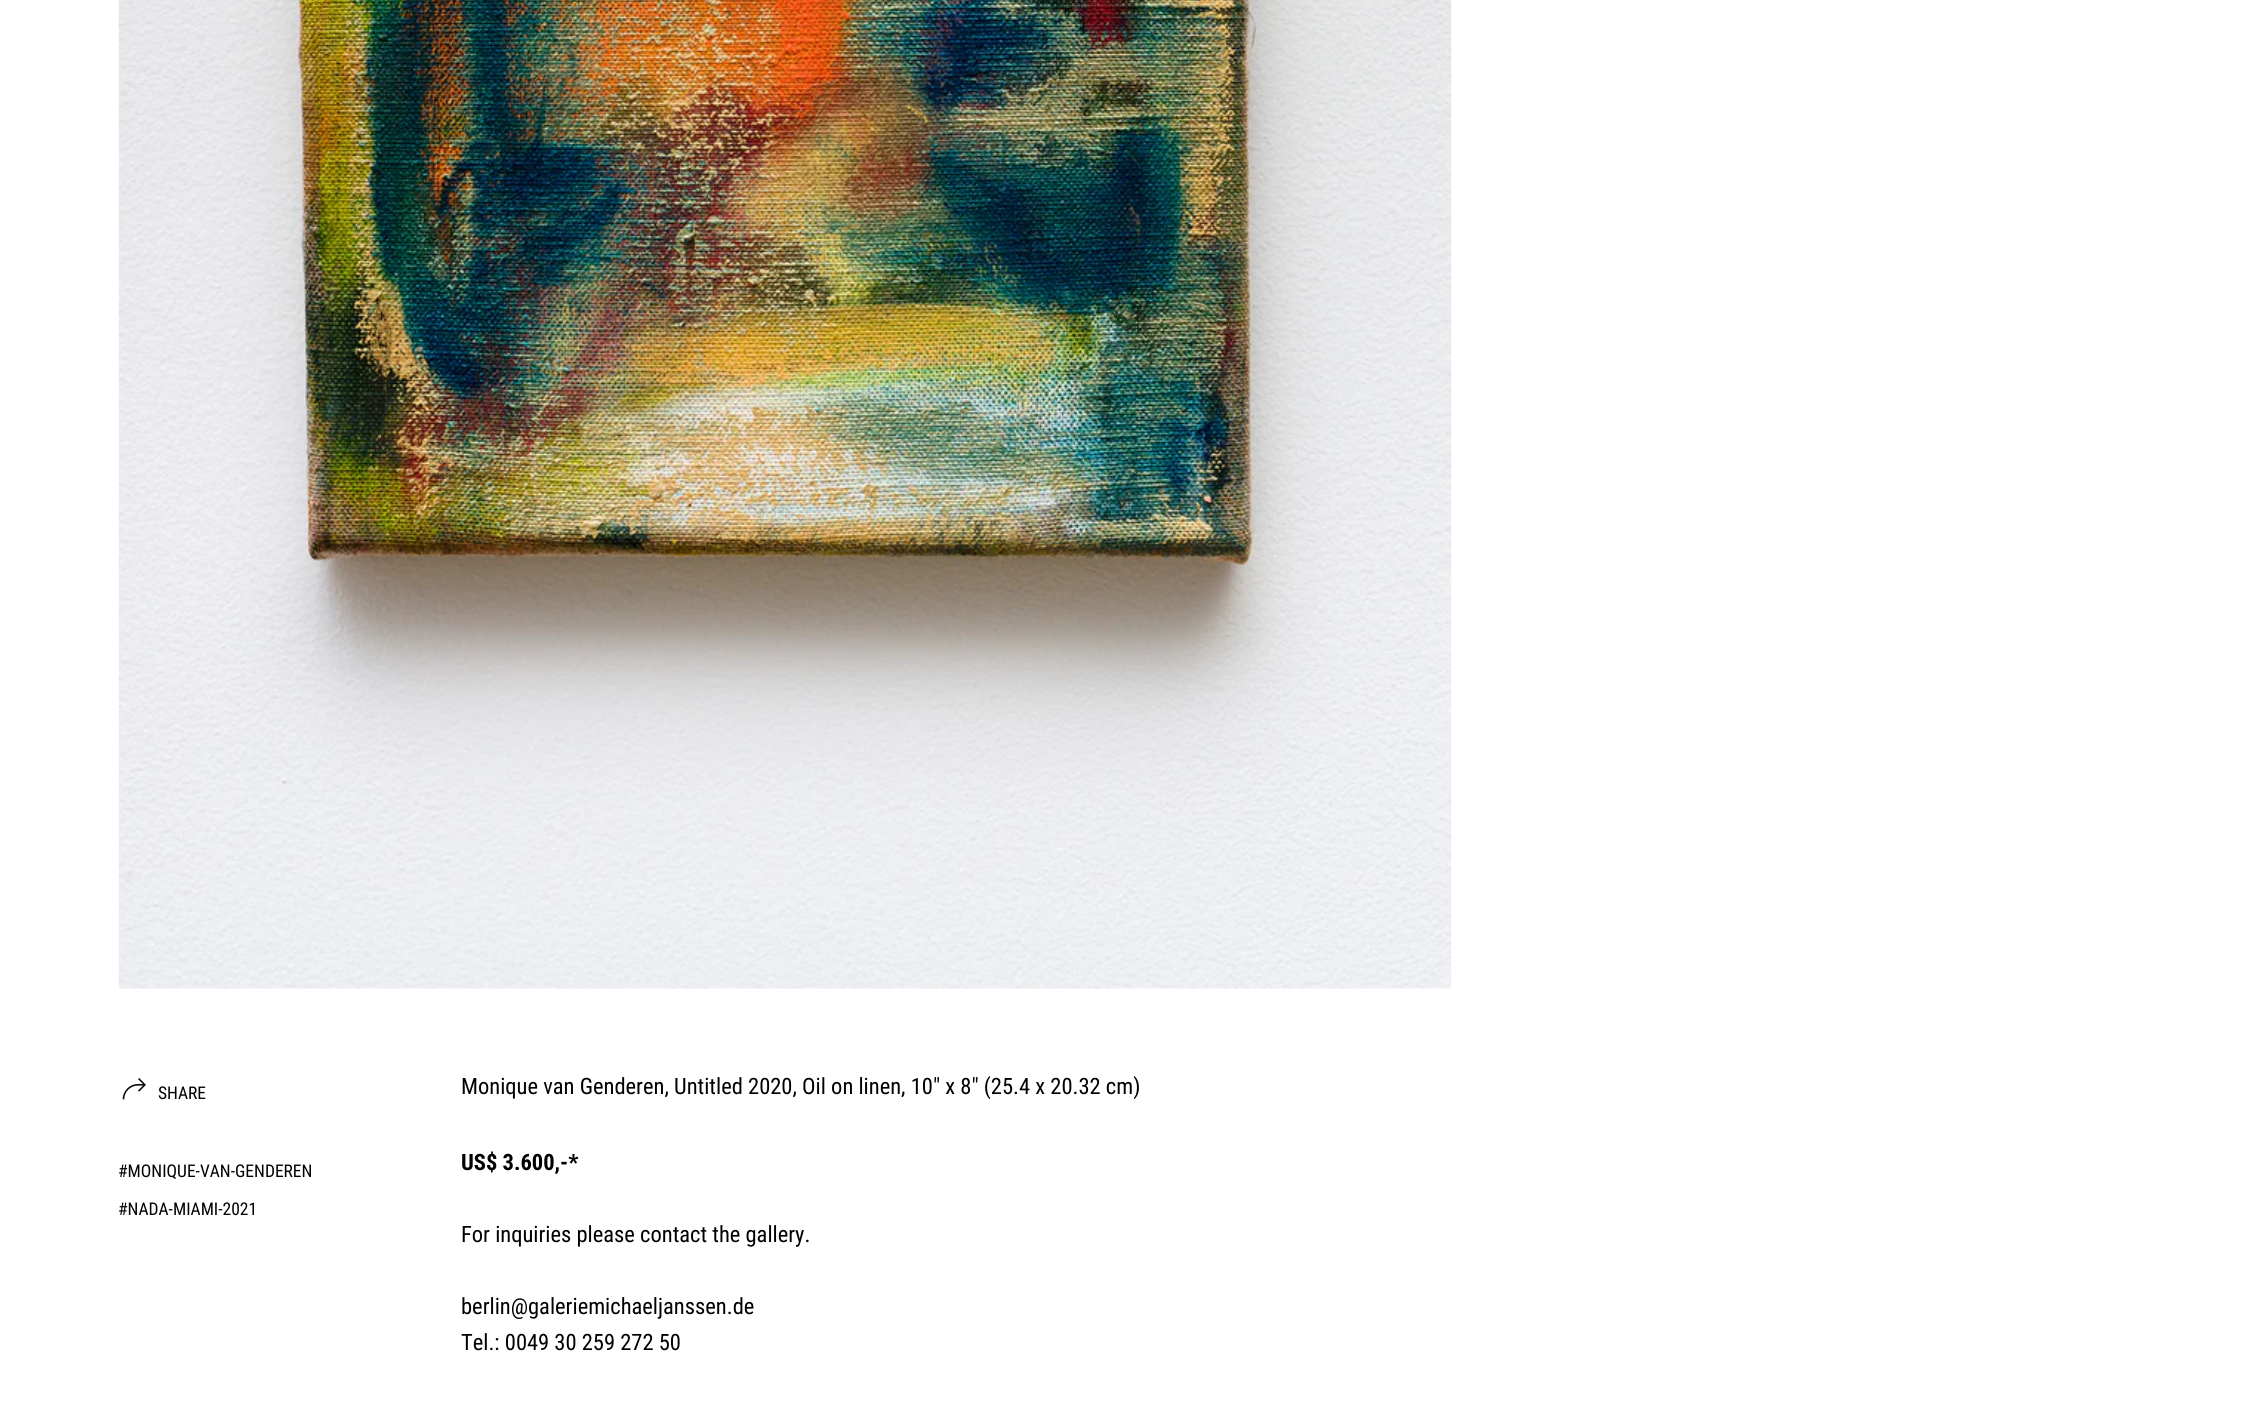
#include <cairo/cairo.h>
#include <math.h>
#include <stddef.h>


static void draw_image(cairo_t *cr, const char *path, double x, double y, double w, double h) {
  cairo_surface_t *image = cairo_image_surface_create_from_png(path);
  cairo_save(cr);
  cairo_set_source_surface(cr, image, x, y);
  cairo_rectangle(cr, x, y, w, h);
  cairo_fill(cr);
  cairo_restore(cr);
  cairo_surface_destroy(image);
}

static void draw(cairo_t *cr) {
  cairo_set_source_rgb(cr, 1, 1, 1);
  cairo_paint(cr);
  draw_image(cr, "images/1.png", 118, 0, 1334, 989);
  draw_image(cr, "images/2.png", 122, 1078, 24, 22);
  cairo_select_font_face(cr, "Roboto Condensed", CAIRO_FONT_SLANT_NORMAL, CAIRO_FONT_WEIGHT_NORMAL);
  cairo_set_font_size(cr, 17.5);
  cairo_set_source_rgb(cr, 0, 0, 0);
  cairo_move_to(cr, 158, 1099);
  cairo_show_text(cr, "SHARE");
  cairo_move_to(cr, 118, 1177);
  cairo_show_text(cr, "#MONIQUE-VAN-GENDEREN");
  cairo_move_to(cr, 118, 1215);
  cairo_show_text(cr, "#NADA-MIAMI-2021");
  cairo_set_font_size(cr, 22.5);
  cairo_move_to(cr, 461, 1094);
  cairo_show_text(cr, "Monique van Genderen, Untitled 2020, Oil on linen, 10\" x 8\" (25.4 x 20.32 cm)");
  cairo_select_font_face(cr, "Roboto Condensed", CAIRO_FONT_SLANT_NORMAL, CAIRO_FONT_WEIGHT_BOLD);
  cairo_move_to(cr, 461, 1170);
  cairo_show_text(cr, "US$ 3.600,-*");
  cairo_select_font_face(cr, "Roboto Condensed", CAIRO_FONT_SLANT_NORMAL, CAIRO_FONT_WEIGHT_NORMAL);
  cairo_move_to(cr, 461, 1242);
  cairo_show_text(cr, "For inquiries please contact the gallery.");
  cairo_move_to(cr, 461, 1314);
  cairo_show_text(cr, "berlin@galeriemichaeljanssen.de");
  cairo_move_to(cr, 461, 1350);
  cairo_show_text(cr, "Tel.: 0049 30 259 272 50");
}

int main(void) {
  cairo_surface_t *surface = cairo_image_surface_create(CAIRO_FORMAT_RGB24, 2256, 1403);
  cairo_t *cr = cairo_create(surface);
  cairo_font_options_t *options = cairo_font_options_create();
  cairo_font_options_set_hint_metrics(options, CAIRO_HINT_METRICS_OFF);
  cairo_font_options_set_hint_style(options, CAIRO_HINT_STYLE_NONE);
  cairo_set_font_options(cr, options);
  cairo_set_miter_limit(cr, 4);
  draw(cr);
  cairo_surface_write_to_png(surface, "out.png");
  cairo_font_options_destroy(options);
  cairo_destroy(cr);
  cairo_surface_destroy(surface);
  return 0;
}
